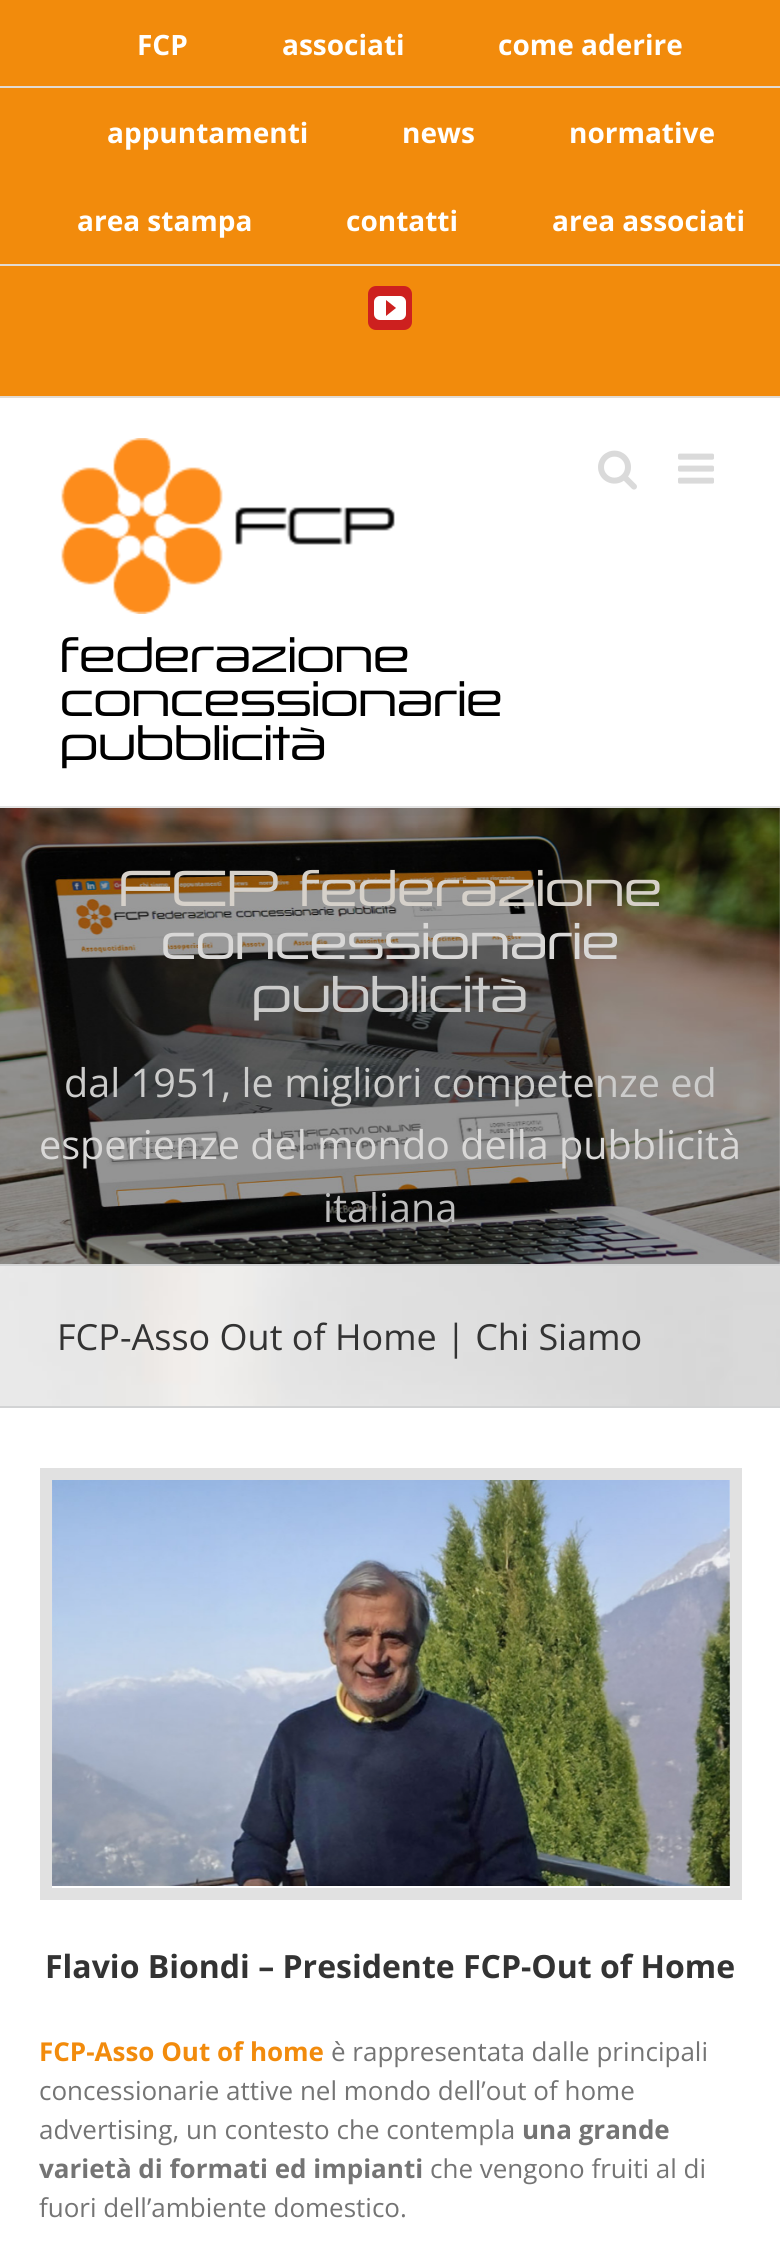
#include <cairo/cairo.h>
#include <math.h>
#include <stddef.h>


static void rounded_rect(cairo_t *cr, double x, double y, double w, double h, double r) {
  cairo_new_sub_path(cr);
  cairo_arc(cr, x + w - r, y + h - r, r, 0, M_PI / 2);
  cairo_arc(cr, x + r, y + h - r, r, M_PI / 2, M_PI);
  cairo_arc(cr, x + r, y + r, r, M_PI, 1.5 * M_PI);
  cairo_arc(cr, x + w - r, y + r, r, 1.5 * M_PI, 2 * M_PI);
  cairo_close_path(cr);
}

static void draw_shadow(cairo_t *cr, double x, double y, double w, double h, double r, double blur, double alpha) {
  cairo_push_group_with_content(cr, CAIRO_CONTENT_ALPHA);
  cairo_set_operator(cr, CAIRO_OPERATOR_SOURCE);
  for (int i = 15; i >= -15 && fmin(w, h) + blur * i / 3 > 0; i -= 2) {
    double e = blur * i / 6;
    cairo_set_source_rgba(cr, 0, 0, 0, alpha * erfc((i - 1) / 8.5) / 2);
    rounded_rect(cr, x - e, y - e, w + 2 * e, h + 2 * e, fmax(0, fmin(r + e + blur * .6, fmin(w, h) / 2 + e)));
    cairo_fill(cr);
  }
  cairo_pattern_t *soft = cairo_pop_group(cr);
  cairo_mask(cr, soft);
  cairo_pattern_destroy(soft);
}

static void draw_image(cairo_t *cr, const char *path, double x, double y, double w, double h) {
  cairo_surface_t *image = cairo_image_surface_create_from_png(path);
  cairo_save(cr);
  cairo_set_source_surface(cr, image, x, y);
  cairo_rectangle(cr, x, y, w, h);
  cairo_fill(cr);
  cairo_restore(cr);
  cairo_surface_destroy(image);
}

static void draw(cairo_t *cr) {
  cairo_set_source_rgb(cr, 1, 1, 1);
  cairo_paint(cr);
  draw_image(cr, "images/5.png", 0, 808, 780, 456);
  cairo_save(cr);
  cairo_rectangle(cr, 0, 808, 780, 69);
  cairo_clip(cr);
  cairo_set_source_rgb(cr, 0, 0, 0);
  draw_shadow(cr, 4, 24, 772, 800, 0, 50, 0.14);
  cairo_restore(cr);
  cairo_set_source_rgb(cr, 242 / 255.0, 139 / 255.0, 12 / 255.0);
  cairo_rectangle(cr, 0, 0, 780, 396);
  cairo_fill(cr);
  cairo_set_source_rgb(cr, 226 / 255.0, 219 / 255.0, 210 / 255.0);
  cairo_rectangle(cr, 0, 396, 780, 2);
  cairo_fill(cr);
  cairo_rectangle(cr, 0, 264, 780, 2);
  cairo_fill(cr);
  cairo_rectangle(cr, 0, 86, 780, 2);
  cairo_fill(cr);
  cairo_set_source_rgb(cr, 205 / 255.0, 32 / 255.0, 31 / 255.0);
  rounded_rect(cr, 369, 287, 42, 42, 7);
  cairo_fill_preserve(cr);
  cairo_stroke(cr);
  draw_image(cr, "images/1.png", 374, 296, 32, 24);
  cairo_set_source_rgb(cr, 227 / 255.0, 227 / 255.0, 227 / 255.0);
  cairo_rectangle(cr, 0, 806, 780, 2);
  cairo_fill(cr);
  draw_image(cr, "images/2.png", 598, 450, 39, 40);
  draw_image(cr, "images/3.png", 678, 453, 36, 31);
  draw_image(cr, "images/4.png", 61, 438, 334, 176);
  draw_image(cr, "images/6.png", 0, 1266, 780, 140);
  cairo_set_source_rgb(cr, 210 / 255.0, 211 / 255.0, 212 / 255.0);
  cairo_rectangle(cr, 0, 1264, 780, 2);
  cairo_fill(cr);
  cairo_rectangle(cr, 0, 1406, 780, 2);
  cairo_fill(cr);
  cairo_rectangle(cr, 46, 1474, 690, 420);
  cairo_set_source_rgb(cr, 225 / 255.0, 225 / 255.0, 225 / 255.0);
  cairo_set_line_width(cr, 12);
  cairo_stroke(cr);
  draw_image(cr, "images/7.png", 52, 1480, 678, 406);
  cairo_select_font_face(cr, "Open Sans", CAIRO_FONT_SLANT_NORMAL, CAIRO_FONT_WEIGHT_BOLD);
  cairo_set_font_size(cr, 28);
  cairo_set_source_rgb(cr, 1, 1, 1);
  cairo_move_to(cr, 137, 55);
  cairo_show_text(cr, "FCP");
  cairo_move_to(cr, 282, 55);
  cairo_show_text(cr, "associati");
  cairo_move_to(cr, 498, 55);
  cairo_show_text(cr, "come aderire");
  cairo_move_to(cr, 107, 143);
  cairo_show_text(cr, "appuntamenti");
  cairo_move_to(cr, 402, 143);
  cairo_show_text(cr, "news");
  cairo_move_to(cr, 569, 143);
  cairo_show_text(cr, "normative");
  cairo_move_to(cr, 77, 231);
  cairo_show_text(cr, "area stampa");
  cairo_move_to(cr, 346, 231);
  cairo_show_text(cr, "contatti");
  cairo_move_to(cr, 552, 231);
  cairo_show_text(cr, "area associati");
  cairo_select_font_face(cr, "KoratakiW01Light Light", CAIRO_FONT_SLANT_NORMAL, CAIRO_FONT_WEIGHT_NORMAL);
  cairo_set_font_size(cr, 42.5);
  cairo_set_source_rgb(cr, 0, 0, 0);
  cairo_move_to(cr, 60, 672);
  cairo_show_text(cr, "federazione");
  cairo_move_to(cr, 60, 716);
  cairo_show_text(cr, "concessionarie");
  cairo_move_to(cr, 60, 760);
  cairo_show_text(cr, "pubblicità");
  cairo_set_font_size(cr, 44);
  cairo_set_source_rgb(cr, 214 / 255.0, 209 / 255.0, 202 / 255.0);
  cairo_move_to(cr, 119, 906);
  cairo_show_text(cr, "FCP federazione");
  cairo_set_source_rgb(cr, 217 / 255.0, 216 / 255.0, 215 / 255.0);
  cairo_move_to(cr, 161, 959);
  cairo_show_text(cr, "concessionarie");
  cairo_set_source_rgb(cr, 204 / 255.0, 204 / 255.0, 203 / 255.0);
  cairo_move_to(cr, 252, 1012);
  cairo_show_text(cr, "pubblicità");
  cairo_select_font_face(cr, "Open Sans", CAIRO_FONT_SLANT_NORMAL, CAIRO_FONT_WEIGHT_NORMAL);
  cairo_set_font_size(cr, 39.6);
  cairo_move_to(cr, 64, 1097);
  cairo_show_text(cr, "dal 1951, le migliori competenze ed");
  cairo_set_source_rgb(cr, 217 / 255.0, 216 / 255.0, 215 / 255.0);
  cairo_move_to(cr, 39, 1159);
  cairo_show_text(cr, "esperienze del mondo della pubblicità");
  cairo_set_source_rgb(cr, 189 / 255.0, 189 / 255.0, 189 / 255.0);
  cairo_move_to(cr, 323, 1222);
  cairo_show_text(cr, "italiana");
  cairo_set_font_size(cr, 36);
  cairo_set_source_rgb(cr, 51 / 255.0, 51 / 255.0, 51 / 255.0);
  cairo_move_to(cr, 57, 1350);
  cairo_show_text(cr, "FCP-Asso Out of Home | Chi Siamo");
  cairo_select_font_face(cr, "Open Sans", CAIRO_FONT_SLANT_NORMAL, CAIRO_FONT_WEIGHT_BOLD);
  cairo_set_font_size(cr, 32);
  cairo_move_to(cr, 45, 1978);
  cairo_show_text(cr, "Flavio Biondi – Presidente FCP-Out of Home");
  cairo_set_font_size(cr, 26);
  cairo_set_source_rgb(cr, 242 / 255.0, 139 / 255.0, 12 / 255.0);
  cairo_move_to(cr, 39, 2061);
  cairo_show_text(cr, "FCP-Asso Out of home");
  cairo_select_font_face(cr, "Open Sans", CAIRO_FONT_SLANT_NORMAL, CAIRO_FONT_WEIGHT_NORMAL);
  cairo_set_source_rgb(cr, 116 / 255.0, 116 / 255.0, 116 / 255.0);
  cairo_move_to(cr, 331, 2061);
  cairo_show_text(cr, "è rappresentata dalle principali");
  cairo_move_to(cr, 39, 2100);
  cairo_show_text(cr, "concessionarie attive nel mondo dell’out of home");
  cairo_move_to(cr, 39, 2139);
  cairo_show_text(cr, "advertising, un contesto che contempla");
  cairo_select_font_face(cr, "Open Sans", CAIRO_FONT_SLANT_NORMAL, CAIRO_FONT_WEIGHT_BOLD);
  cairo_move_to(cr, 522, 2139);
  cairo_show_text(cr, "una grande");
  cairo_move_to(cr, 39, 2178);
  cairo_show_text(cr, "varietà di formati ed impianti");
  cairo_select_font_face(cr, "Open Sans", CAIRO_FONT_SLANT_NORMAL, CAIRO_FONT_WEIGHT_NORMAL);
  cairo_move_to(cr, 430, 2178);
  cairo_show_text(cr, "che vengono fruiti al di");
  cairo_move_to(cr, 39, 2217);
  cairo_show_text(cr, "fuori dell’ambiente domestico.");
}

int main(void) {
  cairo_surface_t *surface = cairo_image_surface_create(CAIRO_FORMAT_RGB24, 780, 2242);
  cairo_t *cr = cairo_create(surface);
  cairo_font_options_t *options = cairo_font_options_create();
  cairo_font_options_set_hint_metrics(options, CAIRO_HINT_METRICS_OFF);
  cairo_font_options_set_hint_style(options, CAIRO_HINT_STYLE_NONE);
  cairo_set_font_options(cr, options);
  cairo_set_miter_limit(cr, 4);
  draw(cr);
  cairo_surface_write_to_png(surface, "out.png");
  cairo_font_options_destroy(options);
  cairo_destroy(cr);
  cairo_surface_destroy(surface);
  return 0;
}
